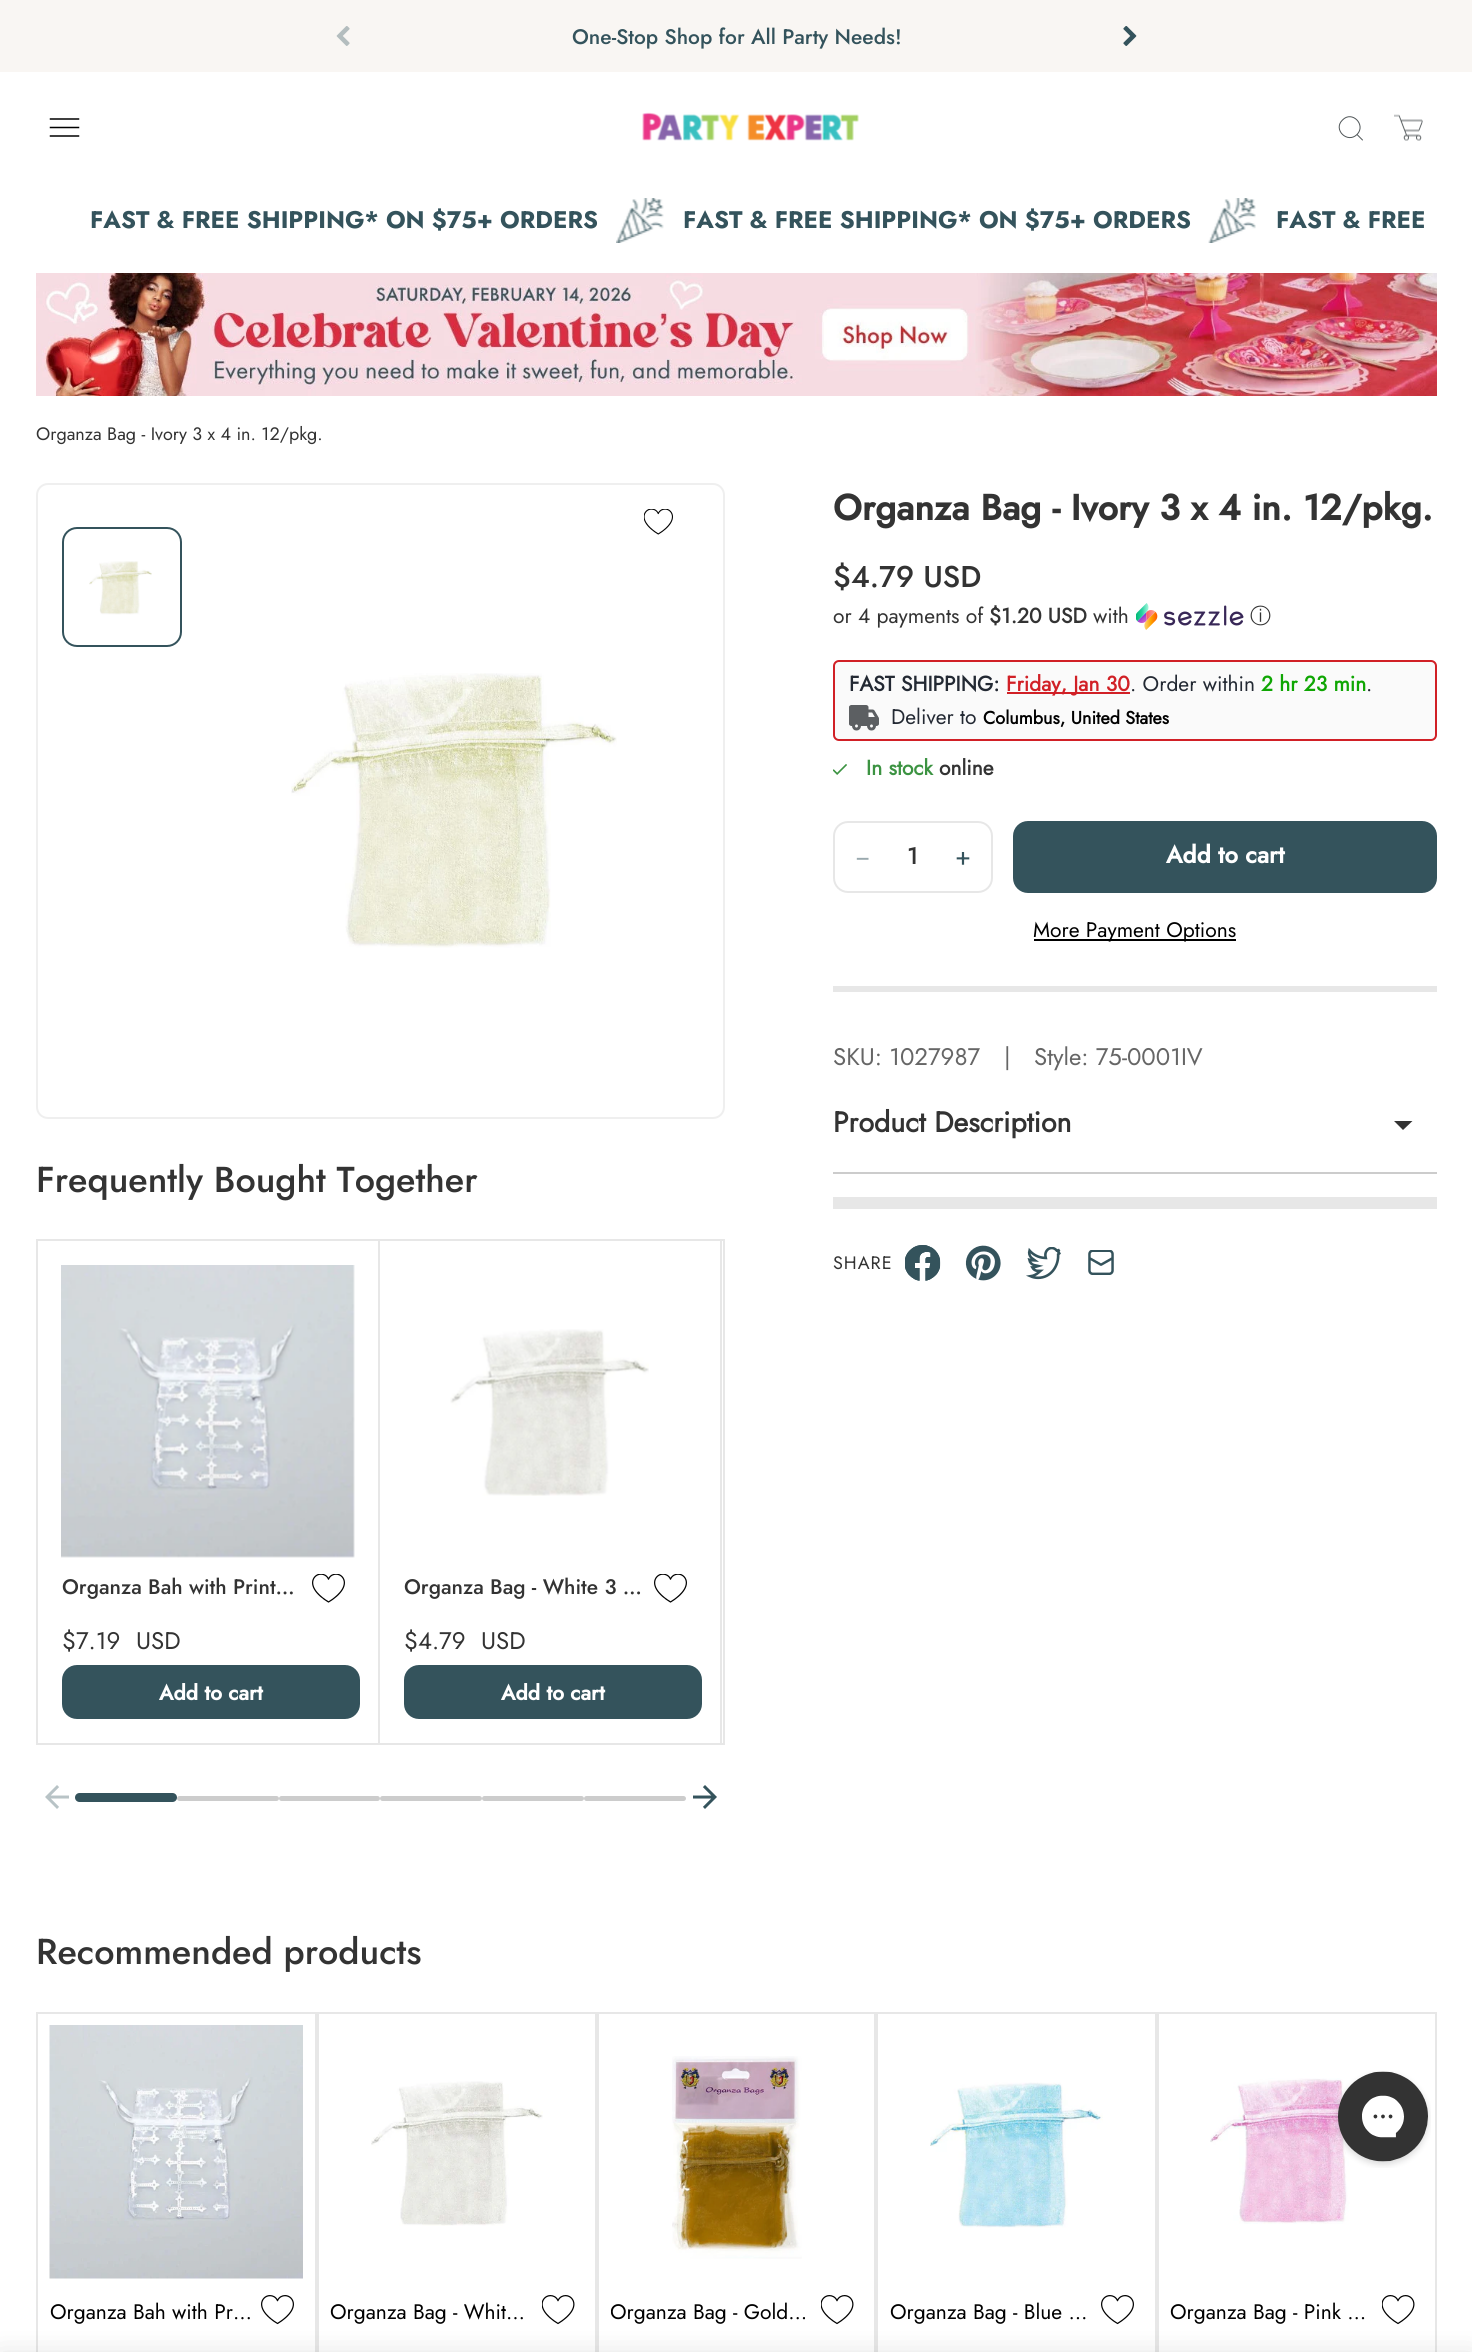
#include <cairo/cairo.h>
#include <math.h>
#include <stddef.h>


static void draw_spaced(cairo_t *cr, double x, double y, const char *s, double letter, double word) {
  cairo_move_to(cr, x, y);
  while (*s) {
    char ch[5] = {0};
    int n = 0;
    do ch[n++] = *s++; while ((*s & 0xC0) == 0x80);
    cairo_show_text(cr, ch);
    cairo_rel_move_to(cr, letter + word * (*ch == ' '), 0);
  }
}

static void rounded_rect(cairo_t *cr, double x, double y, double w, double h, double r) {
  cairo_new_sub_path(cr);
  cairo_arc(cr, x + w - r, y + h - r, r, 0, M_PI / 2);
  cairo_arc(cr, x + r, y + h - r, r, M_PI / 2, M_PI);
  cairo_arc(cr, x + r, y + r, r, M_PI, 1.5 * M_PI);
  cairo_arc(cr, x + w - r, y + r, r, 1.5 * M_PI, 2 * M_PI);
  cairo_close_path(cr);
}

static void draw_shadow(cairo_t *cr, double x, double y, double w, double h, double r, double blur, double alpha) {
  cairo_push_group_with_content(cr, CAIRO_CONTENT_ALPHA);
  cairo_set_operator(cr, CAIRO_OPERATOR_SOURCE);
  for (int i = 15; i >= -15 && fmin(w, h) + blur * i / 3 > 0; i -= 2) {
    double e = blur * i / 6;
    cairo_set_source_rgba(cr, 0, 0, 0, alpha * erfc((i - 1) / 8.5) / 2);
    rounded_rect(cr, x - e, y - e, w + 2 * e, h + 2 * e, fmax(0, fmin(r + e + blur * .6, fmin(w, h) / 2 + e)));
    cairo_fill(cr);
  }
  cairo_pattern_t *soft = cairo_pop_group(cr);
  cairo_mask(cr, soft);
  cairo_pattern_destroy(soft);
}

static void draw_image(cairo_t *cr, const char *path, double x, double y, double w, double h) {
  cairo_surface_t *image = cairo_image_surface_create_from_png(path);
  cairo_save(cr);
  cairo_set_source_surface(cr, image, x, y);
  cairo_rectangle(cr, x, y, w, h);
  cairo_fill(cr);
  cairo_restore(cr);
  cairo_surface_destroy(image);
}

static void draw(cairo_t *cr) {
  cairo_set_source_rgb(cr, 1, 1, 1);
  cairo_paint(cr);
  cairo_set_source_rgb(cr, 249 / 255.0, 246 / 255.0, 243 / 255.0);
  cairo_rectangle(cr, 0, 0, 1472, 72);
  cairo_fill(cr);
  draw_image(cr, "images/1.png", 336, 26, 14, 20);
  draw_image(cr, "images/2.png", 1123, 26, 14, 20);
  cairo_new_path(cr);
  cairo_move_to(cr, 50.5, 119);
  cairo_line_to(cr, 78.5, 119);
  cairo_move_to(cr, 50.5, 127.5);
  cairo_line_to(cr, 78.5, 127.5);
  cairo_move_to(cr, 50.5, 136);
  cairo_line_to(cr, 78.5, 136);
  cairo_set_source_rgb(cr, 0, 0, 0);
  cairo_set_line_width(cr, 1.5);
  cairo_set_line_cap(cr, CAIRO_LINE_CAP_SQUARE);
  cairo_stroke(cr);
  draw_image(cr, "images/3.png", 642, 112, 217, 29);
  cairo_new_path(cr);
  cairo_move_to(cr, 1362.5, 140);
  cairo_line_to(cr, 1357, 134.5);
  cairo_move_to(cr, 1357, 134.5);
  cairo_curve_to(cr, 1366.5, 125, 1352, 110, 1342.5, 120);
  cairo_curve_to(cr, 1332.5, 129.5, 1347.5, 144, 1357, 134.5);
  cairo_close_path(cr);
  cairo_set_source_rgb(cr, 79 / 255.0, 85 / 255.0, 87 / 255.0);
  cairo_set_line_width(cr, 1);
  cairo_set_line_cap(cr, CAIRO_LINE_CAP_ROUND);
  cairo_set_line_join(cr, CAIRO_LINE_JOIN_ROUND);
  cairo_stroke(cr);
  draw_image(cr, "images/4.png", 1394, 114, 29, 27);
  draw_image(cr, "images/5.png", 616, 198, 48, 45);
  draw_image(cr, "images/6.png", 1208, 198, 48, 45);
  draw_image(cr, "images/7.png", 36, 273, 1401, 123);
  rounded_rect(cr, 37, 484, 687, 634, 11);
  cairo_set_source_rgb(cr, 239 / 255.0, 239 / 255.0, 239 / 255.0);
  cairo_set_line_width(cr, 2);
  cairo_set_line_cap(cr, CAIRO_LINE_CAP_BUTT);
  cairo_set_line_join(cr, CAIRO_LINE_JOIN_MITER);
  cairo_stroke(cr);
  rounded_rect(cr, 63, 528, 118, 118, 14);
  cairo_set_source_rgb(cr, 52 / 255.0, 83 / 255.0, 92 / 255.0);
  cairo_stroke(cr);
  draw_image(cr, "images/8.png", 89, 561, 63, 54);
  draw_image(cr, "images/9.png", 291, 673, 326, 275);
  draw_image(cr, "images/10.png", 1136, 603, 108, 27);
  cairo_set_source_rgb(cr, 250 / 255.0, 250 / 255.0, 250 / 255.0);
  rounded_rect(cr, 834, 661, 602, 79, 5);
  cairo_fill_preserve(cr);
  cairo_set_source_rgb(cr, 209 / 255.0, 32 / 255.0, 38 / 255.0);
  cairo_stroke(cr);
  cairo_rectangle(cr, 1007, 692, 123, 2);
  cairo_fill(cr);
  draw_image(cr, "images/11.png", 849, 705, 30, 26);
  draw_image(cr, "images/12.png", 644, 509, 29, 26);
  draw_image(cr, "images/13.png", 833, 764, 14, 11);
  rounded_rect(cr, 834, 822, 158, 70, 14);
  cairo_set_source_rgb(cr, 231 / 255.0, 231 / 255.0, 231 / 255.0);
  cairo_stroke(cr);
  cairo_set_source_rgb(cr, 52 / 255.0, 83 / 255.0, 92 / 255.0);
  rounded_rect(cr, 1014.5, 822.5, 421, 69, 13.5);
  cairo_fill_preserve(cr);
  cairo_set_line_width(cr, 3);
  cairo_stroke(cr);
  cairo_set_source_rgb(cr, 0, 0, 0);
  cairo_rectangle(cr, 1034, 939, 202, 2);
  cairo_fill(cr);
  cairo_rectangle(cr, 37, 2013, 279, 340);
  cairo_set_source_rgb(cr, 231 / 255.0, 231 / 255.0, 231 / 255.0);
  cairo_set_line_width(cr, 2);
  cairo_stroke(cr);
  draw_image(cr, "images/24.png", 261, 2295, 33, 30);
  cairo_rectangle(cr, 318, 2013, 278, 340);
  cairo_stroke(cr);
  draw_image(cr, "images/26.png", 542, 2295, 33, 30);
  cairo_rectangle(cr, 598, 2013, 277, 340);
  cairo_stroke(cr);
  draw_image(cr, "images/26.png", 821, 2295, 33, 30);
  cairo_rectangle(cr, 877, 2013, 279, 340);
  cairo_stroke(cr);
  draw_image(cr, "images/24.png", 1101, 2295, 33, 30);
  cairo_rectangle(cr, 1158, 2013, 278, 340);
  cairo_stroke(cr);
  draw_image(cr, "images/26.png", 1382, 2295, 33, 30);
  cairo_set_source_rgb(cr, 0, 0, 0);
  draw_shadow(cr, 0, 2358, 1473, 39, 0, 15, 0.15);
  cairo_set_source_rgb(cr, 231 / 255.0, 231 / 255.0, 231 / 255.0);
  cairo_rectangle(cr, 833, 986, 604, 6);
  cairo_fill(cr);
  cairo_set_source_rgb(cr, 204 / 255.0, 204 / 255.0, 204 / 255.0);
  cairo_rectangle(cr, 833, 1172, 604, 2);
  cairo_fill(cr);
  cairo_save(cr);
  cairo_rectangle(cr, 1394, 1121, 19, 9);
  cairo_clip(cr);
  cairo_set_source_rgb(cr, 51 / 255.0, 51 / 255.0, 51 / 255.0);
  cairo_new_path(cr);
  cairo_move_to(cr, 1393.5, 1120.5);
  cairo_line_to(cr, 1403, 1130);
  cairo_line_to(cr, 1413, 1120.5);
  cairo_close_path(cr);
  cairo_fill(cr);
  cairo_restore(cr);
  cairo_set_source_rgb(cr, 231 / 255.0, 231 / 255.0, 231 / 255.0);
  cairo_rectangle(cr, 833, 1197, 604, 12);
  cairo_fill(cr);
  draw_image(cr, "images/14.png", 905, 1245, 36, 36);
  draw_image(cr, "images/15.png", 965, 1245, 36, 36);
  draw_image(cr, "images/16.png", 1026, 1247, 35, 33);
  draw_image(cr, "images/17.png", 1088, 1250, 26, 25);
  cairo_rectangle(cr, 37, 1240, 687, 504);
  cairo_stroke(cr);
  cairo_rectangle(cr, 378, 1241, 2, 502);
  cairo_fill(cr);
  draw_image(cr, "images/18.png", 61, 1265, 294, 293);
  draw_image(cr, "images/19.png", 312, 1574, 33, 29);
  cairo_set_source_rgb(cr, 52 / 255.0, 83 / 255.0, 92 / 255.0);
  rounded_rect(cr, 63.5, 1666.5, 295, 51, 13.5);
  cairo_fill_preserve(cr);
  cairo_set_line_width(cr, 3);
  cairo_stroke(cr);
  cairo_set_source_rgb(cr, 231 / 255.0, 231 / 255.0, 231 / 255.0);
  cairo_rectangle(cr, 720, 1241, 2, 502);
  cairo_fill(cr);
  draw_image(cr, "images/20.png", 450, 1329, 199, 167);
  draw_image(cr, "images/19.png", 654, 1574, 33, 29);
  cairo_set_source_rgb(cr, 52 / 255.0, 83 / 255.0, 92 / 255.0);
  rounded_rect(cr, 405.5, 1666.5, 295, 51, 13.5);
  cairo_fill_preserve(cr);
  cairo_stroke(cr);
  draw_image(cr, "images/21.png", 45, 1785, 24, 24);
  draw_image(cr, "images/22.png", 693, 1785, 24, 24);
  rounded_rect(cr, 75, 1793, 102, 9, 4.5);
  cairo_fill(cr);
  cairo_set_source_rgb(cr, 204 / 255.0, 204 / 255.0, 204 / 255.0);
  rounded_rect(cr, 177, 1796, 102, 5, 2.5);
  cairo_fill(cr);
  rounded_rect(cr, 279, 1796, 101, 5, 2.5);
  cairo_fill(cr);
  rounded_rect(cr, 380, 1796, 102, 5, 2.5);
  cairo_fill(cr);
  rounded_rect(cr, 482, 1796, 102, 5, 2.5);
  cairo_fill(cr);
  rounded_rect(cr, 584, 1796, 102, 5, 2.5);
  cairo_fill(cr);
  draw_image(cr, "images/23.png", 49, 2025, 254, 254);
  draw_image(cr, "images/25.png", 371, 2081, 172, 145);
  draw_image(cr, "images/27.png", 672, 2056, 130, 203);
  draw_image(cr, "images/28.png", 930, 2082, 173, 146);
  draw_image(cr, "images/29.png", 1210, 2078, 172, 146);
  draw_image(cr, "images/30.png", 1335, 2071, 96, 97);
  cairo_select_font_face(cr, "Jost Medium", CAIRO_FONT_SLANT_NORMAL, CAIRO_FONT_WEIGHT_NORMAL);
  cairo_set_font_size(cr, 21);
  cairo_set_source_rgb(cr, 52 / 255.0, 83 / 255.0, 92 / 255.0);
  cairo_move_to(cr, 572, 44);
  cairo_show_text(cr, "One-Stop Shop for All Party Needs!");
  cairo_select_font_face(cr, "Jost", CAIRO_FONT_SLANT_NORMAL, CAIRO_FONT_WEIGHT_BOLD);
  cairo_set_font_size(cr, 24);
  cairo_move_to(cr, 90, 228);
  cairo_show_text(cr, "FAST & FREE SHIPPING* ON $75+ ORDERS");
  cairo_move_to(cr, 683, 228);
  cairo_show_text(cr, "FAST & FREE SHIPPING* ON $75+ ORDERS");
  cairo_move_to(cr, 1276, 228);
  cairo_show_text(cr, "FAST & FREE");
  cairo_select_font_face(cr, "Jost", CAIRO_FONT_SLANT_NORMAL, CAIRO_FONT_WEIGHT_NORMAL);
  cairo_set_font_size(cr, 18);
  cairo_set_source_rgb(cr, 51 / 255.0, 51 / 255.0, 51 / 255.0);
  cairo_move_to(cr, 36, 440);
  cairo_show_text(cr, "Organza Bag - Ivory 3 x 4 in. 12/pkg.");
  cairo_select_font_face(cr, "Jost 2", CAIRO_FONT_SLANT_NORMAL, CAIRO_FONT_WEIGHT_BOLD);
  cairo_set_font_size(cr, 36);
  cairo_move_to(cr, 833, 520);
  cairo_show_text(cr, "Organza Bag - Ivory 3 x 4 in. 12/pkg.");
  cairo_select_font_face(cr, "Jost Medium", CAIRO_FONT_SLANT_NORMAL, CAIRO_FONT_WEIGHT_NORMAL);
  cairo_set_font_size(cr, 30);
  cairo_move_to(cr, 833, 587);
  cairo_show_text(cr, "$4.79 USD");
  cairo_select_font_face(cr, "Jost", CAIRO_FONT_SLANT_NORMAL, CAIRO_FONT_WEIGHT_NORMAL);
  cairo_set_font_size(cr, 21);
  cairo_move_to(cr, 833, 623);
  cairo_show_text(cr, "or 4 payments of");
  cairo_select_font_face(cr, "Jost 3", CAIRO_FONT_SLANT_NORMAL, CAIRO_FONT_WEIGHT_BOLD);
  cairo_move_to(cr, 989, 623);
  cairo_show_text(cr, "$1.20 USD");
  cairo_select_font_face(cr, "Jost", CAIRO_FONT_SLANT_NORMAL, CAIRO_FONT_WEIGHT_NORMAL);
  cairo_move_to(cr, 1093, 623);
  cairo_show_text(cr, "with");
  cairo_select_font_face(cr, "WenQuanYi Zen Hei Medium", CAIRO_FONT_SLANT_NORMAL, CAIRO_FONT_WEIGHT_NORMAL);
  cairo_move_to(cr, 1250, 623);
  cairo_show_text(cr, "ⓘ");
  cairo_select_font_face(cr, "Jost 3", CAIRO_FONT_SLANT_NORMAL, CAIRO_FONT_WEIGHT_BOLD);
  cairo_set_source_rgb(cr, 35 / 255.0, 41 / 255.0, 51 / 255.0);
  cairo_move_to(cr, 849, 691);
  cairo_show_text(cr, "FAST SHIPPING:");
  cairo_set_source_rgb(cr, 209 / 255.0, 32 / 255.0, 38 / 255.0);
  cairo_move_to(cr, 1006, 691);
  cairo_show_text(cr, "Friday, Jan 30");
  cairo_select_font_face(cr, "Jost", CAIRO_FONT_SLANT_NORMAL, CAIRO_FONT_WEIGHT_NORMAL);
  cairo_set_source_rgb(cr, 35 / 255.0, 41 / 255.0, 51 / 255.0);
  cairo_move_to(cr, 1130, 691);
  cairo_show_text(cr, ". Order within");
  cairo_select_font_face(cr, "Jost 3", CAIRO_FONT_SLANT_NORMAL, CAIRO_FONT_WEIGHT_BOLD);
  cairo_set_source_rgb(cr, 15 / 255.0, 166 / 255.0, 3 / 255.0);
  cairo_move_to(cr, 1261, 691);
  cairo_show_text(cr, "2 hr 23 min");
  cairo_select_font_face(cr, "Jost", CAIRO_FONT_SLANT_NORMAL, CAIRO_FONT_WEIGHT_NORMAL);
  cairo_set_source_rgb(cr, 35 / 255.0, 41 / 255.0, 51 / 255.0);
  cairo_move_to(cr, 1366, 691);
  cairo_show_text(cr, ".");
  cairo_move_to(cr, 891, 724);
  cairo_show_text(cr, "Deliver to");
  cairo_select_font_face(cr, "Jost 3", CAIRO_FONT_SLANT_NORMAL, CAIRO_FONT_WEIGHT_BOLD);
  cairo_set_font_size(cr, 18);
  cairo_set_source_rgb(cr, 0, 0, 0);
  cairo_move_to(cr, 983, 724);
  cairo_show_text(cr, "Columbus, United States");
  cairo_set_font_size(cr, 21);
  cairo_set_source_rgb(cr, 60 / 255.0, 147 / 255.0, 66 / 255.0);
  cairo_move_to(cr, 866, 775);
  cairo_show_text(cr, "In stock");
  cairo_set_source_rgb(cr, 51 / 255.0, 51 / 255.0, 51 / 255.0);
  cairo_move_to(cr, 939, 775);
  cairo_show_text(cr, "online");
  cairo_select_font_face(cr, "Jost", CAIRO_FONT_SLANT_NORMAL, CAIRO_FONT_WEIGHT_NORMAL);
  cairo_set_font_size(cr, 26);
  cairo_set_source_rgb(cr, 154 / 255.0, 169 / 255.0, 174 / 255.0);
  cairo_move_to(cr, 855, 865);
  cairo_show_text(cr, "−");
  cairo_select_font_face(cr, "Jost Medium", CAIRO_FONT_SLANT_NORMAL, CAIRO_FONT_WEIGHT_NORMAL);
  cairo_set_font_size(cr, 24);
  cairo_set_source_rgb(cr, 51 / 255.0, 51 / 255.0, 51 / 255.0);
  cairo_move_to(cr, 907, 864);
  cairo_show_text(cr, "1");
  cairo_select_font_face(cr, "Jost", CAIRO_FONT_SLANT_NORMAL, CAIRO_FONT_WEIGHT_NORMAL);
  cairo_set_font_size(cr, 26);
  cairo_set_source_rgb(cr, 52 / 255.0, 83 / 255.0, 92 / 255.0);
  cairo_move_to(cr, 955, 865);
  cairo_show_text(cr, "+");
  cairo_select_font_face(cr, "Jost 2", CAIRO_FONT_SLANT_NORMAL, CAIRO_FONT_WEIGHT_BOLD);
  cairo_set_font_size(cr, 24);
  cairo_set_source_rgb(cr, 1, 1, 1);
  cairo_move_to(cr, 1166, 863);
  cairo_show_text(cr, "Add to cart");
  cairo_select_font_face(cr, "Jost", CAIRO_FONT_SLANT_NORMAL, CAIRO_FONT_WEIGHT_NORMAL);
  cairo_set_font_size(cr, 21);
  cairo_set_source_rgb(cr, 0, 0, 0);
  cairo_move_to(cr, 1033, 937);
  cairo_show_text(cr, "More Payment Options");
  cairo_set_font_size(cr, 24);
  cairo_set_source_rgb(cr, 102 / 255.0, 102 / 255.0, 102 / 255.0);
  cairo_move_to(cr, 833, 1065);
  cairo_show_text(cr, "SKU: 1027987");
  cairo_move_to(cr, 1004, 1065);
  cairo_show_text(cr, "|");
  cairo_move_to(cr, 1034, 1065);
  cairo_show_text(cr, "Style: 75-0001IV");
  cairo_select_font_face(cr, "Jost 3", CAIRO_FONT_SLANT_NORMAL, CAIRO_FONT_WEIGHT_BOLD);
  cairo_set_font_size(cr, 28.5);
  cairo_set_source_rgb(cr, 51 / 255.0, 51 / 255.0, 51 / 255.0);
  cairo_move_to(cr, 833, 1132);
  cairo_show_text(cr, "Product Description");
  cairo_select_font_face(cr, "Jost", CAIRO_FONT_SLANT_NORMAL, CAIRO_FONT_WEIGHT_NORMAL);
  cairo_set_font_size(cr, 18);
  draw_spaced(cr, 833, 1269, "SHARE", 1, 0);
  cairo_select_font_face(cr, "Jost Medium", CAIRO_FONT_SLANT_NORMAL, CAIRO_FONT_WEIGHT_NORMAL);
  cairo_set_font_size(cr, 36);
  cairo_move_to(cr, 36, 1192);
  cairo_show_text(cr, "Frequently Bought Together");
  cairo_set_font_size(cr, 21);
  cairo_move_to(cr, 62, 1594);
  cairo_show_text(cr, "Organza Bah with Print…");
  cairo_select_font_face(cr, "Jost", CAIRO_FONT_SLANT_NORMAL, CAIRO_FONT_WEIGHT_NORMAL);
  cairo_set_font_size(cr, 24);
  cairo_move_to(cr, 62, 1649);
  cairo_show_text(cr, "$7.19");
  cairo_move_to(cr, 136, 1649);
  cairo_show_text(cr, "USD");
  cairo_select_font_face(cr, "Jost 2", CAIRO_FONT_SLANT_NORMAL, CAIRO_FONT_WEIGHT_BOLD);
  cairo_set_font_size(cr, 21);
  cairo_set_source_rgb(cr, 1, 1, 1);
  cairo_move_to(cr, 159, 1700);
  cairo_show_text(cr, "Add to cart");
  cairo_select_font_face(cr, "Jost Medium", CAIRO_FONT_SLANT_NORMAL, CAIRO_FONT_WEIGHT_NORMAL);
  cairo_set_source_rgb(cr, 51 / 255.0, 51 / 255.0, 51 / 255.0);
  cairo_move_to(cr, 404, 1594);
  cairo_show_text(cr, "Organza Bag - White 3 …");
  cairo_select_font_face(cr, "Jost", CAIRO_FONT_SLANT_NORMAL, CAIRO_FONT_WEIGHT_NORMAL);
  cairo_set_font_size(cr, 24);
  cairo_move_to(cr, 404, 1649);
  cairo_show_text(cr, "$4.79");
  cairo_move_to(cr, 481, 1649);
  cairo_show_text(cr, "USD");
  cairo_select_font_face(cr, "Jost 2", CAIRO_FONT_SLANT_NORMAL, CAIRO_FONT_WEIGHT_BOLD);
  cairo_set_font_size(cr, 21);
  cairo_set_source_rgb(cr, 1, 1, 1);
  cairo_move_to(cr, 501, 1700);
  cairo_show_text(cr, "Add to cart");
  cairo_select_font_face(cr, "Jost Medium", CAIRO_FONT_SLANT_NORMAL, CAIRO_FONT_WEIGHT_NORMAL);
  cairo_set_font_size(cr, 36);
  cairo_set_source_rgb(cr, 51 / 255.0, 51 / 255.0, 51 / 255.0);
  cairo_move_to(cr, 36, 1964);
  cairo_show_text(cr, "Recommended products");
  cairo_select_font_face(cr, "Jost", CAIRO_FONT_SLANT_NORMAL, CAIRO_FONT_WEIGHT_NORMAL);
  cairo_set_font_size(cr, 21);
  cairo_set_source_rgb(cr, 0, 0, 0);
  cairo_move_to(cr, 50, 2319);
  cairo_show_text(cr, "Organza Bah with Pr…");
  cairo_move_to(cr, 330, 2319);
  cairo_show_text(cr, "Organza Bag - Whit…");
  cairo_save(cr);
  cairo_rectangle(cr, 611, 2294, 201, 45);
  cairo_clip(cr);
  cairo_move_to(cr, 610, 2319);
  cairo_show_text(cr, "Organza Bag - Gold…");
  cairo_restore(cr);
  cairo_move_to(cr, 890, 2319);
  cairo_show_text(cr, "Organza Bag - Blue …");
  cairo_move_to(cr, 1170, 2319);
  cairo_show_text(cr, "Organza Bag - Pink …");
}

int main(void) {
  cairo_surface_t *surface = cairo_image_surface_create(CAIRO_FORMAT_RGB24, 1472, 2352);
  cairo_t *cr = cairo_create(surface);
  cairo_font_options_t *options = cairo_font_options_create();
  cairo_font_options_set_hint_metrics(options, CAIRO_HINT_METRICS_OFF);
  cairo_font_options_set_hint_style(options, CAIRO_HINT_STYLE_NONE);
  cairo_set_font_options(cr, options);
  cairo_set_miter_limit(cr, 4);
  draw(cr);
  cairo_surface_write_to_png(surface, "out.png");
  cairo_font_options_destroy(options);
  cairo_destroy(cr);
  cairo_surface_destroy(surface);
  return 0;
}
